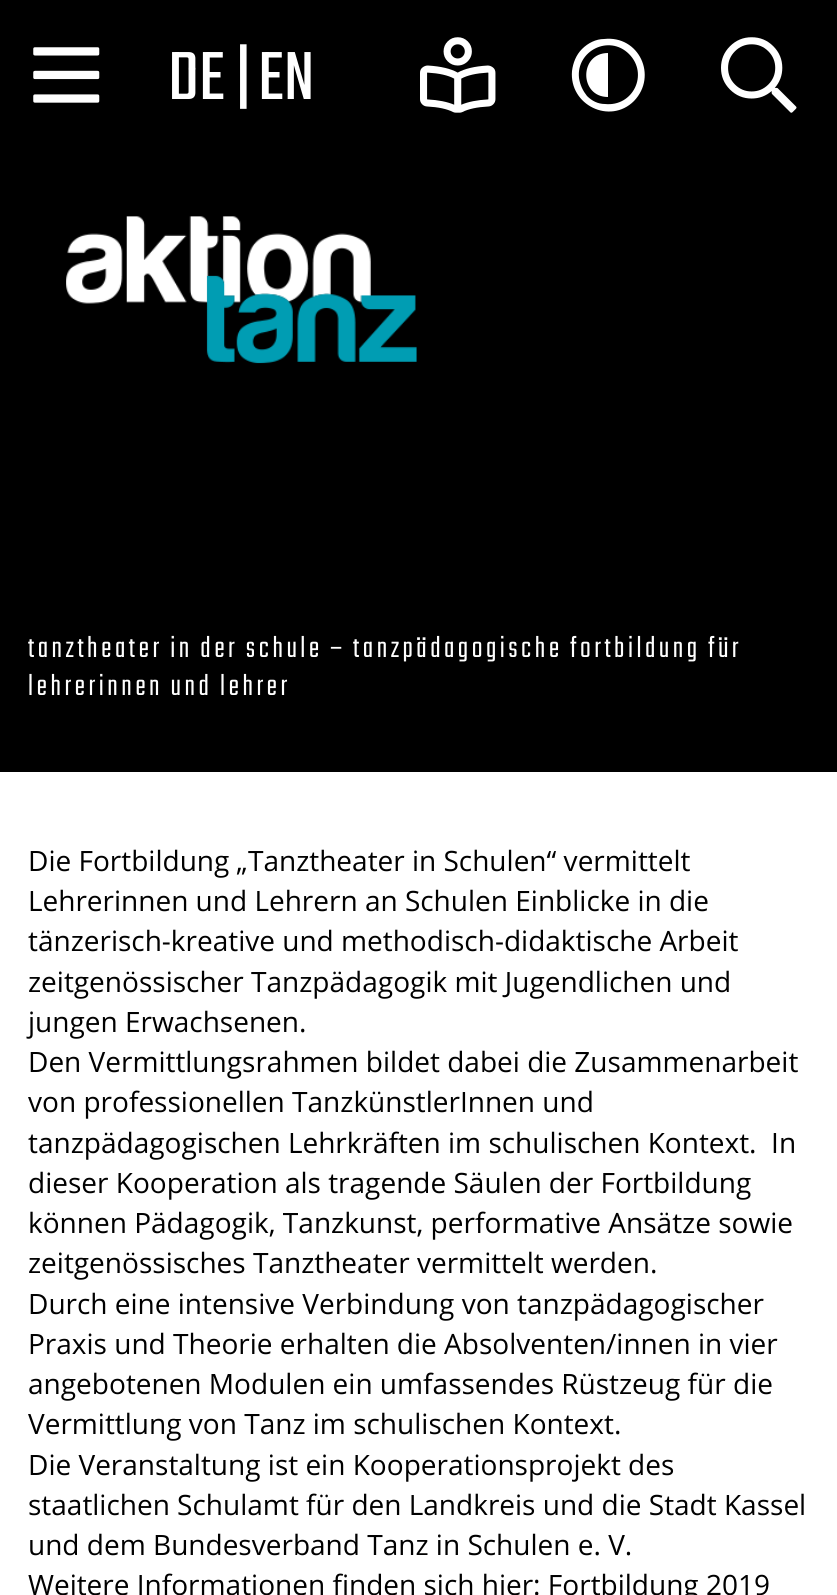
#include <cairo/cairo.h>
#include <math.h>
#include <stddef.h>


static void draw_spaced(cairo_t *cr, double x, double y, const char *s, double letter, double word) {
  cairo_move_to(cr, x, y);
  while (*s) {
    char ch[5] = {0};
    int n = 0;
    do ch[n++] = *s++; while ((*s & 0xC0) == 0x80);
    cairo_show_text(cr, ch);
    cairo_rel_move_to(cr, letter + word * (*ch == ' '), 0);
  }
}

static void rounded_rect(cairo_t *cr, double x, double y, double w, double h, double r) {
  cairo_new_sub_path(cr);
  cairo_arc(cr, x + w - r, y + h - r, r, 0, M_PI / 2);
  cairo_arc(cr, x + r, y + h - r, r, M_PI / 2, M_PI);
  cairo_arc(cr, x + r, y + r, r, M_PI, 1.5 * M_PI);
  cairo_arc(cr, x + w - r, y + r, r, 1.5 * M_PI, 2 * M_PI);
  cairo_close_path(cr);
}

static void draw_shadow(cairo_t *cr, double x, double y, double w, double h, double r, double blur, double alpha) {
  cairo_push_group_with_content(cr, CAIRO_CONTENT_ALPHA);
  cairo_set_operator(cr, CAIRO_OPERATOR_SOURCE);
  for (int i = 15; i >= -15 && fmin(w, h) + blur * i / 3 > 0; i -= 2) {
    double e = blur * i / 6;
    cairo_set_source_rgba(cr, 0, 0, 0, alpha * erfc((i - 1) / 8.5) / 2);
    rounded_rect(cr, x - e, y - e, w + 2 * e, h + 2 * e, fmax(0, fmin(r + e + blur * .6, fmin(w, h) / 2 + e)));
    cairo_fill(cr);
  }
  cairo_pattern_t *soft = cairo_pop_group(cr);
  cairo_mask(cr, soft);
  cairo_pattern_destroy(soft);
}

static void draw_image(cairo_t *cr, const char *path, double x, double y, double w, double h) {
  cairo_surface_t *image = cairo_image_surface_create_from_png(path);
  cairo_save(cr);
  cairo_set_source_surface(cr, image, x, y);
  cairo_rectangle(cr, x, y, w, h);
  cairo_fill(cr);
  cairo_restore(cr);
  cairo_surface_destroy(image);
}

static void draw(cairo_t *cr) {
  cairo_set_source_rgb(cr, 1, 1, 1);
  cairo_paint(cr);
  cairo_set_source_rgb(cr, 0, 0, 0);
  cairo_rectangle(cr, 0, 151, 837, 621);
  cairo_fill(cr);
  cairo_set_source_rgb(cr, 0, 0, 0);
  draw_shadow(cr, 7, 21, 824, 137, 0, 3.5, 0.3);
  cairo_set_source_rgb(cr, 0, 0, 0);
  cairo_rectangle(cr, 0, 0, 837, 151);
  cairo_fill(cr);
  draw_image(cr, "images/1.png", 33, 47, 67, 56);
  draw_image(cr, "images/2.png", 420, 37, 76, 76);
  cairo_set_source_rgb(cr, 1, 1, 1);
  cairo_new_path(cr);
  cairo_move_to(cr, 629, 54);
  cairo_curve_to(cr, 609, 34, 576, 51, 579, 78);
  cairo_curve_to(cr, 580, 85, 583, 91, 587, 96);
  cairo_curve_to(cr, 592, 101, 598, 104, 605, 104);
  cairo_curve_to(cr, 633, 107, 649, 74, 629, 54);
  cairo_close_path(cr);
  cairo_move_to(cr, 582, 49);
  cairo_curve_to(cr, 588, 43, 596, 39, 604, 39);
  cairo_curve_to(cr, 639, 35, 658, 76, 634, 101);
  cairo_curve_to(cr, 610, 125, 569, 105, 572, 71);
  cairo_curve_to(cr, 573, 63, 576, 55, 582, 49);
  cairo_close_path(cr);
  cairo_move_to(cr, 608, 53);
  cairo_line_to(cr, 608, 97);
  cairo_curve_to(cr, 579, 97, 579, 53, 608, 53);
  cairo_close_path(cr);
  cairo_fill(cr);
  draw_image(cr, "images/3.png", 721, 37, 76, 76);
  draw_image(cr, "images/4.png", 66, 216, 351, 148);
  cairo_select_font_face(cr, "Teko", CAIRO_FONT_SLANT_NORMAL, CAIRO_FONT_WEIGHT_NORMAL);
  cairo_set_font_size(cr, 75);
  cairo_move_to(cr, 168, 99);
  cairo_show_text(cr, "DE");
  cairo_move_to(cr, 236, 100);
  cairo_show_text(cr, "|");
  cairo_move_to(cr, 258, 99);
  cairo_show_text(cr, "EN");
  cairo_select_font_face(cr, "Teko Light", CAIRO_FONT_SLANT_NORMAL, CAIRO_FONT_WEIGHT_NORMAL);
  cairo_set_font_size(cr, 31.5);
  draw_spaced(cr, 28, 657, "tanztheater in der schule – tanzpädagogische fortbildung für", 3.5, 0);
  draw_spaced(cr, 28, 695, "lehrerinnen und lehrer", 3.5, 0);
  cairo_select_font_face(cr, "Open Sans", CAIRO_FONT_SLANT_NORMAL, CAIRO_FONT_WEIGHT_NORMAL);
  cairo_set_font_size(cr, 28);
  cairo_set_source_rgb(cr, 0, 0, 0);
  cairo_move_to(cr, 28, 871);
  cairo_show_text(cr, "Die Fortbildung „Tanztheater in Schulen“ vermittelt");
  cairo_move_to(cr, 28, 911);
  cairo_show_text(cr, "Lehrerinnen und Lehrern an Schulen Einblicke in die");
  cairo_move_to(cr, 28, 951);
  cairo_show_text(cr, "tänzerisch-kreative und methodisch-didaktische Arbeit");
  cairo_move_to(cr, 28, 992);
  cairo_show_text(cr, "zeitgenössischer Tanzpädagogik mit Jugendlichen und");
  cairo_move_to(cr, 28, 1032);
  cairo_show_text(cr, "jungen Erwachsenen.");
  cairo_move_to(cr, 28, 1072);
  cairo_show_text(cr, "Den Vermittlungsrahmen bildet dabei die Zusammenarbeit");
  cairo_move_to(cr, 28, 1112);
  cairo_show_text(cr, "von professionellen TanzkünstlerInnen und");
  cairo_move_to(cr, 28, 1153);
  cairo_show_text(cr, "tanzpädagogischen Lehrkräften im schulischen Kontext.  In");
  cairo_move_to(cr, 28, 1193);
  cairo_show_text(cr, "dieser Kooperation als tragende Säulen der Fortbildung");
  cairo_move_to(cr, 28, 1233);
  cairo_show_text(cr, "können Pädagogik, Tanzkunst, performative Ansätze sowie");
  cairo_move_to(cr, 28, 1273);
  cairo_show_text(cr, "zeitgenössisches Tanztheater vermittelt werden.");
  cairo_move_to(cr, 28, 1314);
  cairo_show_text(cr, "Durch eine intensive Verbindung von tanzpädagogischer");
  cairo_move_to(cr, 28, 1354);
  cairo_show_text(cr, "Praxis und Theorie erhalten die Absolventen/innen in vier");
  cairo_move_to(cr, 28, 1394);
  cairo_show_text(cr, "angebotenen Modulen ein umfassendes Rüstzeug für die");
  cairo_move_to(cr, 28, 1434);
  cairo_show_text(cr, "Vermittlung von Tanz im schulischen Kontext.");
  cairo_move_to(cr, 28, 1475);
  cairo_show_text(cr, "Die Veranstaltung ist ein Kooperationsprojekt des");
  cairo_move_to(cr, 28, 1515);
  cairo_show_text(cr, "staatlichen Schulamt für den Landkreis und die Stadt Kassel");
  cairo_move_to(cr, 28, 1555);
  cairo_show_text(cr, "und dem Bundesverband Tanz in Schulen e. V.");
  cairo_move_to(cr, 28, 1595);
  cairo_show_text(cr, "Weitere Informationen finden sich hier: Fortbildung 2019");
}

int main(void) {
  cairo_surface_t *surface = cairo_image_surface_create(CAIRO_FORMAT_RGB24, 837, 1595);
  cairo_t *cr = cairo_create(surface);
  cairo_font_options_t *options = cairo_font_options_create();
  cairo_font_options_set_hint_metrics(options, CAIRO_HINT_METRICS_OFF);
  cairo_font_options_set_hint_style(options, CAIRO_HINT_STYLE_NONE);
  cairo_set_font_options(cr, options);
  cairo_set_miter_limit(cr, 4);
  draw(cr);
  cairo_surface_write_to_png(surface, "out.png");
  cairo_font_options_destroy(options);
  cairo_destroy(cr);
  cairo_surface_destroy(surface);
  return 0;
}
